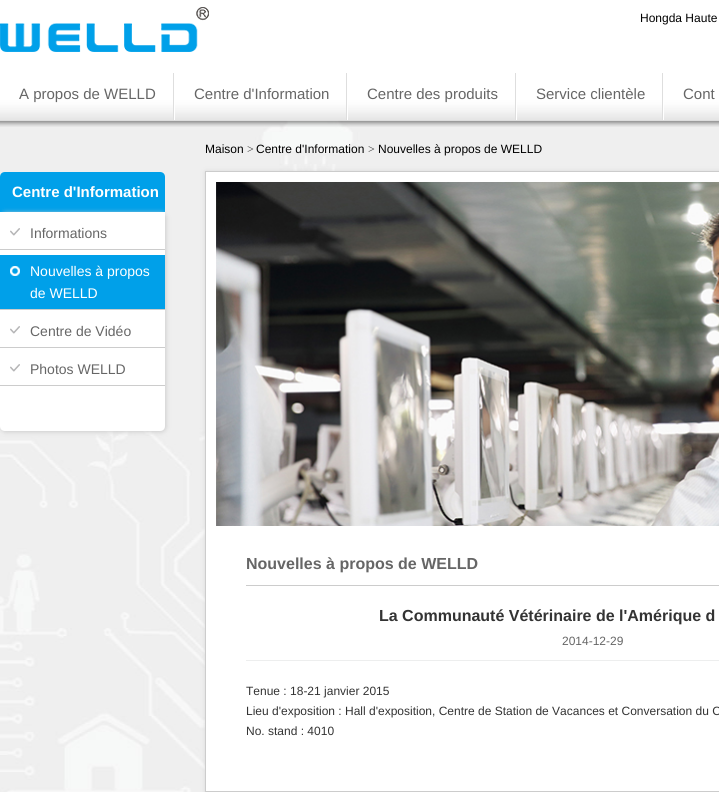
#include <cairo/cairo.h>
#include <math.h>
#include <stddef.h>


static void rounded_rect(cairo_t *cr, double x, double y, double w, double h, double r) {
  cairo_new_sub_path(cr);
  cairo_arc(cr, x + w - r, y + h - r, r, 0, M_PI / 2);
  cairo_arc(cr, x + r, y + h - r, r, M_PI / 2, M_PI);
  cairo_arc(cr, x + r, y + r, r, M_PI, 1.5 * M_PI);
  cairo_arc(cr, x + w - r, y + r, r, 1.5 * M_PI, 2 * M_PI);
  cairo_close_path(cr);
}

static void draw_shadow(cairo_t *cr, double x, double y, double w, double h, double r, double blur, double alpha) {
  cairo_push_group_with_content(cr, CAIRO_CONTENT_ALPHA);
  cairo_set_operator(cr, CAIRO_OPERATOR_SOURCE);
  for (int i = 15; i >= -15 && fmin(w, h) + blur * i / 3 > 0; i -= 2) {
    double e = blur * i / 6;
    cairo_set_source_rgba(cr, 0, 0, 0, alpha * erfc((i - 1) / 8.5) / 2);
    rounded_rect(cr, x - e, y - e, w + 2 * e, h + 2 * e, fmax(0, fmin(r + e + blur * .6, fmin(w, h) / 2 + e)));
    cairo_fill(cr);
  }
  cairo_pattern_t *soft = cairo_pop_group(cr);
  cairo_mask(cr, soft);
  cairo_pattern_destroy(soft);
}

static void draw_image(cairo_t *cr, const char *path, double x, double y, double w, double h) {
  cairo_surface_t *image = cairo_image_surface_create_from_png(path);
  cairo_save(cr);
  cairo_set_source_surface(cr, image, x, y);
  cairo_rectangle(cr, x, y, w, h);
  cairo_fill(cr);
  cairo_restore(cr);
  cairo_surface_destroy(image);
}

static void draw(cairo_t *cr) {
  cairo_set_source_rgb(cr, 1, 1, 1);
  cairo_paint(cr);
  draw_image(cr, "images/4.png", 0, 120, 719, 672);
  draw_image(cr, "images/1.png", 0, 100, 719, 27);
  draw_image(cr, "images/2.png", 0, 7, 209, 45);
  draw_image(cr, "images/3.png", 173, 73, 2, 47);
  draw_image(cr, "images/3.png", 346, 73, 2, 47);
  draw_image(cr, "images/3.png", 515, 73, 2, 47);
  draw_image(cr, "images/3.png", 662, 73, 2, 47);
  cairo_set_source_rgb(cr, 0, 160 / 255.0, 233 / 255.0);
  cairo_new_path(cr);
  cairo_move_to(cr, 5, 172);
  cairo_line_to(cr, 160, 172);
  cairo_curve_to(cr, 163, 172, 165, 174, 165, 177);
  cairo_line_to(cr, 165, 212);
  cairo_line_to(cr, 0, 212);
  cairo_line_to(cr, 0, 177);
  cairo_curve_to(cr, 0, 174, 2, 172, 5, 172);
  cairo_close_path(cr);
  cairo_fill(cr);
  cairo_set_source_rgb(cr, 204 / 255.0, 204 / 255.0, 204 / 255.0);
  draw_shadow(cr, 1, 213, 165, 219, 5, 2.5, 1);
  cairo_set_source_rgb(cr, 1, 1, 1);
  cairo_new_path(cr);
  cairo_move_to(cr, 0, 212);
  cairo_line_to(cr, 165, 212);
  cairo_line_to(cr, 165, 426);
  cairo_curve_to(cr, 165, 429, 163, 431, 160, 431);
  cairo_line_to(cr, 5, 431);
  cairo_curve_to(cr, 2, 431, 0, 429, 0, 426);
  cairo_close_path(cr);
  cairo_fill(cr);
  draw_image(cr, "images/5.png", 10, 228, 10, 8);
  cairo_set_source_rgb(cr, 204 / 255.0, 204 / 255.0, 204 / 255.0);
  cairo_rectangle(cr, 0, 249, 165, 1);
  cairo_fill(cr);
  cairo_set_source_rgb(cr, 0, 160 / 255.0, 233 / 255.0);
  cairo_rectangle(cr, 0, 255, 165, 54);
  cairo_fill(cr);
  draw_image(cr, "images/6.png", 10, 266, 10, 10);
  cairo_set_source_rgb(cr, 204 / 255.0, 204 / 255.0, 204 / 255.0);
  cairo_rectangle(cr, 0, 309, 165, 1);
  cairo_fill(cr);
  draw_image(cr, "images/5.png", 10, 326, 10, 8);
  cairo_rectangle(cr, 0, 347, 165, 1);
  cairo_fill(cr);
  draw_image(cr, "images/5.png", 10, 364, 10, 8);
  cairo_rectangle(cr, 0, 385, 165, 1);
  cairo_fill(cr);
  cairo_set_source_rgb(cr, 204 / 255.0, 204 / 255.0, 204 / 255.0);
  draw_shadow(cr, 206, 172, 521, 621, 0, 2.5, 1);
  cairo_set_source_rgb(cr, 1, 1, 1);
  cairo_rectangle(cr, 205.5, 171.5, 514, 620);
  cairo_fill_preserve(cr);
  cairo_set_source_rgb(cr, 204 / 255.0, 204 / 255.0, 204 / 255.0);
  cairo_set_line_width(cr, 1);
  cairo_stroke(cr);
  draw_image(cr, "images/7.png", 216, 182, 503, 344);
  cairo_rectangle(cr, 246, 585, 473, 1);
  cairo_fill(cr);
  cairo_set_source_rgb(cr, 237 / 255.0, 238 / 255.0, 238 / 255.0);
  cairo_rectangle(cr, 246, 660, 473, 1);
  cairo_fill(cr);
  cairo_select_font_face(cr, "Liberation Sans", CAIRO_FONT_SLANT_NORMAL, CAIRO_FONT_WEIGHT_NORMAL);
  cairo_set_font_size(cr, 12);
  cairo_set_source_rgb(cr, 0, 0, 0);
  cairo_move_to(cr, 640, 22);
  cairo_show_text(cr, "Hongda Haute");
  cairo_set_font_size(cr, 15);
  cairo_set_source_rgb(cr, 102 / 255.0, 102 / 255.0, 102 / 255.0);
  cairo_move_to(cr, 19, 99);
  cairo_show_text(cr, "A propos de WELLD");
  cairo_move_to(cr, 194, 99);
  cairo_show_text(cr, "Centre d'Information");
  cairo_move_to(cr, 367, 99);
  cairo_show_text(cr, "Centre des produits");
  cairo_move_to(cr, 536, 99);
  cairo_show_text(cr, "Service clientèle");
  cairo_move_to(cr, 683, 99);
  cairo_show_text(cr, "Cont");
  cairo_select_font_face(cr, "Liberation Sans", CAIRO_FONT_SLANT_NORMAL, CAIRO_FONT_WEIGHT_BOLD);
  cairo_set_source_rgb(cr, 1, 1, 1);
  cairo_move_to(cr, 12, 197);
  cairo_show_text(cr, "Centre d'Information");
  cairo_select_font_face(cr, "Liberation Sans", CAIRO_FONT_SLANT_NORMAL, CAIRO_FONT_WEIGHT_NORMAL);
  cairo_set_font_size(cr, 14);
  cairo_set_source_rgb(cr, 102 / 255.0, 102 / 255.0, 102 / 255.0);
  cairo_move_to(cr, 30, 238);
  cairo_show_text(cr, "Informations");
  cairo_set_source_rgb(cr, 1, 1, 1);
  cairo_move_to(cr, 30, 276);
  cairo_show_text(cr, "Nouvelles à propos");
  cairo_move_to(cr, 30, 298);
  cairo_show_text(cr, "de WELLD");
  cairo_set_source_rgb(cr, 102 / 255.0, 102 / 255.0, 102 / 255.0);
  cairo_move_to(cr, 30, 336);
  cairo_show_text(cr, "Centre de Vidéo");
  cairo_move_to(cr, 30, 374);
  cairo_show_text(cr, "Photos WELLD");
  cairo_set_font_size(cr, 12);
  cairo_set_source_rgb(cr, 0, 0, 0);
  cairo_move_to(cr, 205, 153);
  cairo_show_text(cr, "Maison");
  cairo_select_font_face(cr, "Liberation Serif", CAIRO_FONT_SLANT_NORMAL, CAIRO_FONT_WEIGHT_NORMAL);
  cairo_set_source_rgb(cr, 51 / 255.0, 51 / 255.0, 51 / 255.0);
  cairo_move_to(cr, 247, 153);
  cairo_show_text(cr, ">");
  cairo_select_font_face(cr, "Liberation Sans", CAIRO_FONT_SLANT_NORMAL, CAIRO_FONT_WEIGHT_NORMAL);
  cairo_set_source_rgb(cr, 0, 0, 0);
  cairo_move_to(cr, 256, 153);
  cairo_show_text(cr, "Centre d'Information");
  cairo_select_font_face(cr, "Liberation Serif", CAIRO_FONT_SLANT_NORMAL, CAIRO_FONT_WEIGHT_NORMAL);
  cairo_set_source_rgb(cr, 51 / 255.0, 51 / 255.0, 51 / 255.0);
  cairo_move_to(cr, 368, 153);
  cairo_show_text(cr, ">");
  cairo_select_font_face(cr, "Liberation Sans", CAIRO_FONT_SLANT_NORMAL, CAIRO_FONT_WEIGHT_NORMAL);
  cairo_set_source_rgb(cr, 0, 0, 0);
  cairo_move_to(cr, 378, 153);
  cairo_show_text(cr, "Nouvelles à propos de WELLD");
  cairo_select_font_face(cr, "Liberation Sans", CAIRO_FONT_SLANT_NORMAL, CAIRO_FONT_WEIGHT_BOLD);
  cairo_set_font_size(cr, 16);
  cairo_set_source_rgb(cr, 102 / 255.0, 102 / 255.0, 102 / 255.0);
  cairo_move_to(cr, 246, 569);
  cairo_show_text(cr, "Nouvelles à propos de WELLD");
  cairo_set_source_rgb(cr, 51 / 255.0, 51 / 255.0, 51 / 255.0);
  cairo_move_to(cr, 379, 621);
  cairo_show_text(cr, "La Communauté Vétérinaire de l'Amérique d");
  cairo_select_font_face(cr, "Liberation Sans", CAIRO_FONT_SLANT_NORMAL, CAIRO_FONT_WEIGHT_NORMAL);
  cairo_set_font_size(cr, 12);
  cairo_set_source_rgb(cr, 102 / 255.0, 102 / 255.0, 102 / 255.0);
  cairo_move_to(cr, 562, 645);
  cairo_show_text(cr, "2014-12-29");
  cairo_set_source_rgb(cr, 51 / 255.0, 51 / 255.0, 51 / 255.0);
  cairo_move_to(cr, 246, 695);
  cairo_show_text(cr, "Tenue : 18-21 janvier 2015");
  cairo_move_to(cr, 246, 715);
  cairo_show_text(cr, "Lieu d'exposition : Hall d'exposition, Centre de Station de Vacances et Conversation du C");
  cairo_move_to(cr, 246, 735);
  cairo_show_text(cr, "No. stand : 4010");
}

int main(void) {
  cairo_surface_t *surface = cairo_image_surface_create(CAIRO_FORMAT_RGB24, 719, 792);
  cairo_t *cr = cairo_create(surface);
  cairo_font_options_t *options = cairo_font_options_create();
  cairo_font_options_set_hint_metrics(options, CAIRO_HINT_METRICS_OFF);
  cairo_font_options_set_hint_style(options, CAIRO_HINT_STYLE_NONE);
  cairo_set_font_options(cr, options);
  cairo_set_miter_limit(cr, 4);
  draw(cr);
  cairo_surface_write_to_png(surface, "out.png");
  cairo_font_options_destroy(options);
  cairo_destroy(cr);
  cairo_surface_destroy(surface);
  return 0;
}
